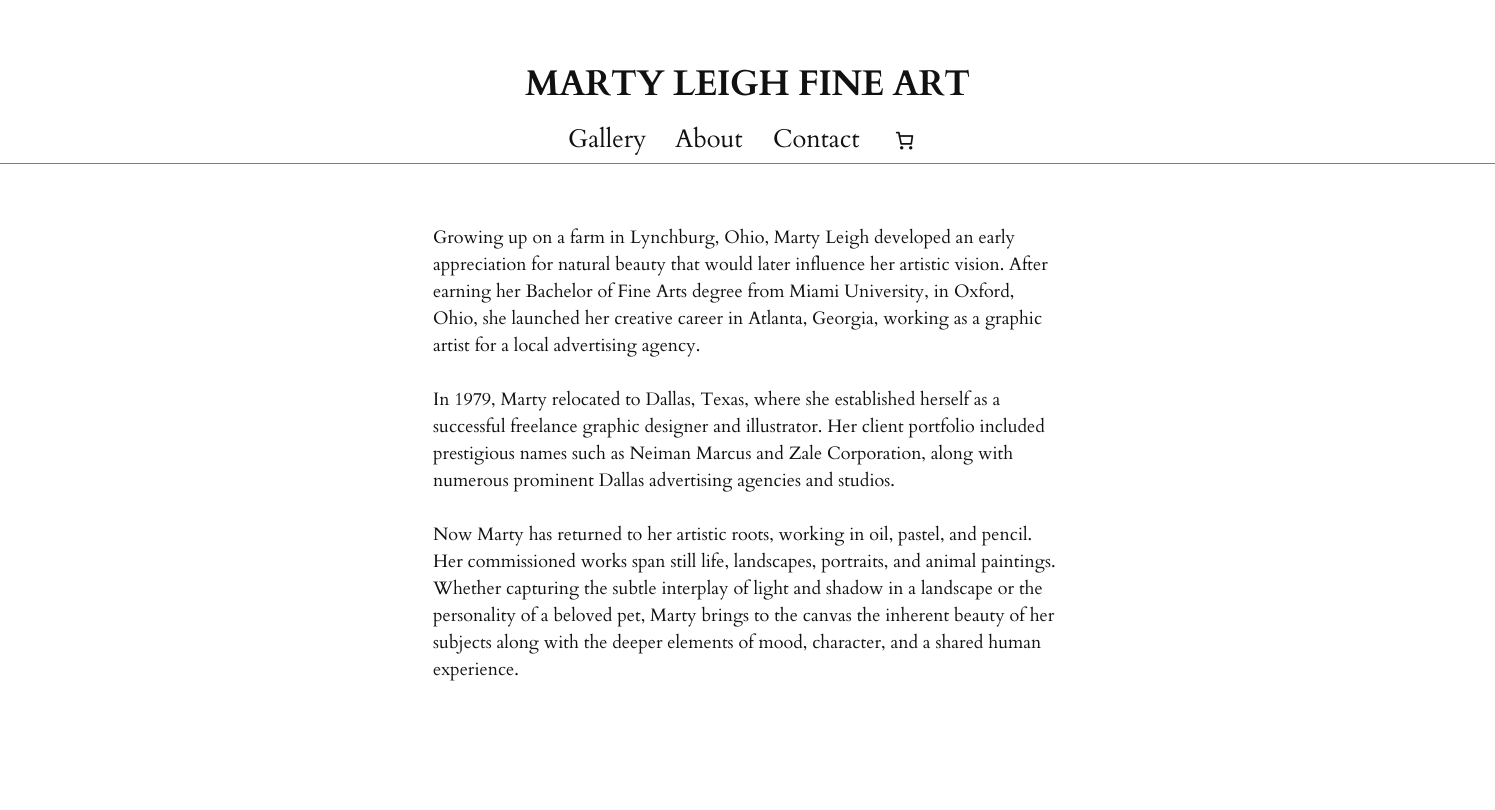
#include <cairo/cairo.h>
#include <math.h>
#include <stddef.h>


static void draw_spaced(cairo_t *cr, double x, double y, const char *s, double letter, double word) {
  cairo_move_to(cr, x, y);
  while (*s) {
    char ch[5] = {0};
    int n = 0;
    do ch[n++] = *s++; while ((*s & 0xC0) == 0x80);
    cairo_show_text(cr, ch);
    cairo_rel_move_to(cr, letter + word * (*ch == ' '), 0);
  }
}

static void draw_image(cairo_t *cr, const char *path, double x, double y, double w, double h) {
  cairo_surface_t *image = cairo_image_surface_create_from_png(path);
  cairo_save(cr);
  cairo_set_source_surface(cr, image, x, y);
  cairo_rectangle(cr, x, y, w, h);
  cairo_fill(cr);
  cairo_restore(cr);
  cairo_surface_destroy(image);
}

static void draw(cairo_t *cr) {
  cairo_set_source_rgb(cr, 1, 1, 1);
  cairo_paint(cr);
  draw_image(cr, "images/1.png", 895, 131, 19, 19);
  cairo_set_source_rgb(cr, 128 / 255.0, 128 / 255.0, 128 / 255.0);
  cairo_rectangle(cr, 0, 163, 1495, 1);
  cairo_fill(cr);
  cairo_select_font_face(cr, "Cardo", CAIRO_FONT_SLANT_NORMAL, CAIRO_FONT_WEIGHT_BOLD);
  cairo_set_font_size(cr, 35.75);
  cairo_set_source_rgb(cr, 17 / 255.0, 17 / 255.0, 17 / 255.0);
  draw_spaced(cr, 525, 95, "MARTY LEIGH FINE ART", -0.75, 0);
  cairo_select_font_face(cr, "Cardo", CAIRO_FONT_SLANT_NORMAL, CAIRO_FONT_WEIGHT_NORMAL);
  cairo_set_font_size(cr, 25.5);
  cairo_move_to(cr, 568, 147);
  cairo_show_text(cr, "Gallery");
  cairo_move_to(cr, 675, 147);
  cairo_show_text(cr, "About");
  cairo_move_to(cr, 773, 147);
  cairo_show_text(cr, "Contact");
  cairo_set_font_size(cr, 18);
  cairo_move_to(cr, 433, 243);
  cairo_show_text(cr, "Growing up on a farm in Lynchburg, Ohio, Marty Leigh developed an early");
  cairo_move_to(cr, 433, 270);
  cairo_show_text(cr, "appreciation for natural beauty that would later influence her artistic vision. After");
  cairo_move_to(cr, 433, 297);
  cairo_show_text(cr, "earning her Bachelor of Fine Arts degree from Miami University, in Oxford,");
  cairo_move_to(cr, 433, 324);
  cairo_show_text(cr, "Ohio, she launched her creative career in Atlanta, Georgia, working as a graphic");
  cairo_move_to(cr, 433, 351);
  cairo_show_text(cr, "artist for a local advertising agency.");
  cairo_move_to(cr, 433, 405);
  cairo_show_text(cr, "In 1979, Marty relocated to Dallas, Texas, where she established herself as a");
  cairo_move_to(cr, 433, 432);
  cairo_show_text(cr, "successful freelance graphic designer and illustrator. Her client portfolio included");
  cairo_move_to(cr, 433, 459);
  cairo_show_text(cr, "prestigious names such as Neiman Marcus and Zale Corporation, along with");
  cairo_move_to(cr, 433, 486);
  cairo_show_text(cr, "numerous prominent Dallas advertising agencies and studios.");
  cairo_move_to(cr, 433, 540);
  cairo_show_text(cr, "Now Marty has returned to her artistic roots, working in oil, pastel, and pencil.");
  cairo_move_to(cr, 433, 567);
  cairo_show_text(cr, "Her commissioned works span still life, landscapes, portraits, and animal paintings.");
  cairo_move_to(cr, 433, 594);
  cairo_show_text(cr, "Whether capturing the subtle interplay of light and shadow in a landscape or the");
  cairo_move_to(cr, 433, 621);
  cairo_show_text(cr, "personality of a beloved pet, Marty brings to the canvas the inherent beauty of her");
  cairo_move_to(cr, 433, 648);
  cairo_show_text(cr, "subjects along with the deeper elements of mood, character, and a shared human");
  cairo_move_to(cr, 433, 675);
  cairo_show_text(cr, "experience.");
}

int main(void) {
  cairo_surface_t *surface = cairo_image_surface_create(CAIRO_FORMAT_RGB24, 1495, 810);
  cairo_t *cr = cairo_create(surface);
  cairo_font_options_t *options = cairo_font_options_create();
  cairo_font_options_set_hint_metrics(options, CAIRO_HINT_METRICS_OFF);
  cairo_font_options_set_hint_style(options, CAIRO_HINT_STYLE_NONE);
  cairo_set_font_options(cr, options);
  cairo_set_miter_limit(cr, 4);
  draw(cr);
  cairo_surface_write_to_png(surface, "out.png");
  cairo_font_options_destroy(options);
  cairo_destroy(cr);
  cairo_surface_destroy(surface);
  return 0;
}
